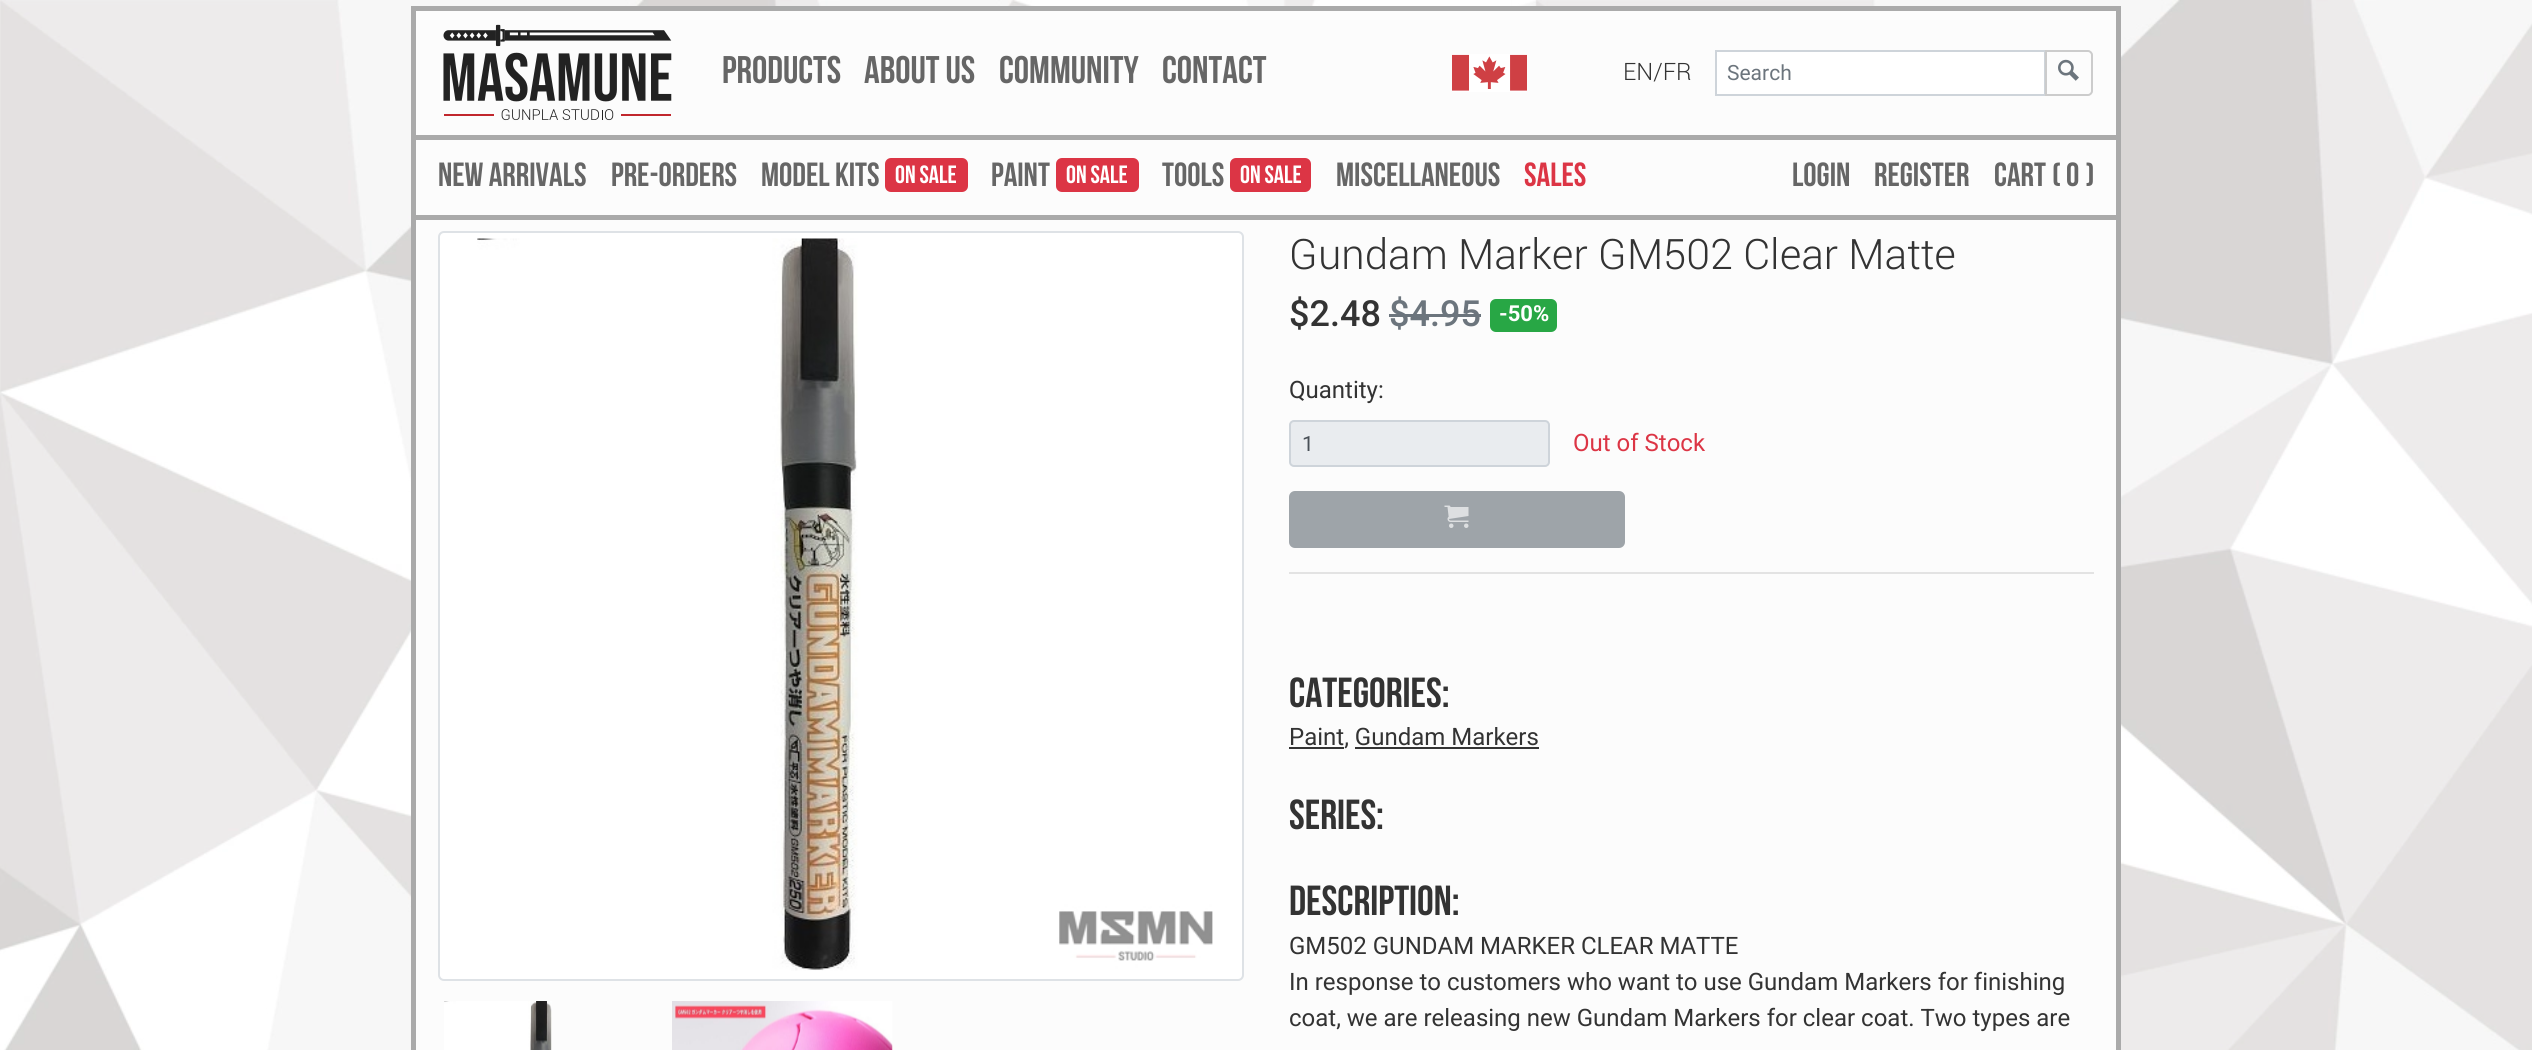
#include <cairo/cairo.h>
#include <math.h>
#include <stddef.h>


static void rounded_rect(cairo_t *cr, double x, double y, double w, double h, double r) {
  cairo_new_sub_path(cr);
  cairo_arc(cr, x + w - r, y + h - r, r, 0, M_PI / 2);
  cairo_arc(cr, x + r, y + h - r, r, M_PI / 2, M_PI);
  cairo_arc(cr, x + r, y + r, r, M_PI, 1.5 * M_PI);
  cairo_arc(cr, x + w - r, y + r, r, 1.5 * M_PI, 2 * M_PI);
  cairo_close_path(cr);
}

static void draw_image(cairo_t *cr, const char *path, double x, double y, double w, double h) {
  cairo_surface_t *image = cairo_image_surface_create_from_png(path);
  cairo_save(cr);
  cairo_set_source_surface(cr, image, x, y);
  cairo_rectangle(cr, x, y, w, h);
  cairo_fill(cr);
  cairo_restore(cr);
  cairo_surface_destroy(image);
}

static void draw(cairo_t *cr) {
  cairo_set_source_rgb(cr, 1, 1, 1);
  cairo_paint(cr);
  draw_image(cr, "images/1.png", 0, 0, 2532, 1050);
  cairo_set_source_rgb(cr, 252 / 255.0, 252 / 255.0, 252 / 255.0);
  cairo_rectangle(cr, 413.5, 8.5, 1705, 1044);
  cairo_fill_preserve(cr);
  cairo_set_source_rgb(cr, 170 / 255.0, 170 / 255.0, 170 / 255.0);
  cairo_set_line_width(cr, 5);
  cairo_stroke(cr);
  cairo_rectangle(cr, 416, 215, 1701, 5);
  cairo_fill(cr);
  draw_image(cr, "images/2.png", 443, 24, 229, 97);
  cairo_set_source_rgb(cr, 1, 1, 1);
  cairo_rectangle(cr, 1452, 54, 75, 38);
  cairo_fill(cr);
  draw_image(cr, "images/3.png", 1452, 54, 75, 37);
  cairo_rectangle(cr, 1716, 51, 329, 44);
  cairo_fill_preserve(cr);
  cairo_set_source_rgb(cr, 206 / 255.0, 212 / 255.0, 218 / 255.0);
  cairo_set_line_width(cr, 2);
  cairo_stroke(cr);
  cairo_new_path(cr);
  cairo_move_to(cr, 2046, 51);
  cairo_line_to(cr, 2088, 51);
  cairo_curve_to(cr, 2090, 51, 2092, 53, 2092, 55);
  cairo_line_to(cr, 2092, 91);
  cairo_curve_to(cr, 2092, 93, 2090, 95, 2088, 95);
  cairo_line_to(cr, 2046, 95);
  cairo_close_path(cr);
  cairo_set_source_rgb(cr, 204 / 255.0, 204 / 255.0, 204 / 255.0);
  cairo_stroke(cr);
  draw_image(cr, "images/4.png", 2058, 59, 21, 22);
  cairo_set_source_rgb(cr, 170 / 255.0, 170 / 255.0, 170 / 255.0);
  cairo_rectangle(cr, 416, 135, 1701, 5);
  cairo_fill(cr);
  cairo_set_source_rgb(cr, 220 / 255.0, 53 / 255.0, 69 / 255.0);
  rounded_rect(cr, 885, 158, 83, 34, 6);
  cairo_fill(cr);
  rounded_rect(cr, 1056, 158, 83, 34, 6);
  cairo_fill(cr);
  rounded_rect(cr, 1230, 158, 81, 34, 6);
  cairo_fill(cr);
  cairo_set_source_rgb(cr, 1, 1, 1);
  rounded_rect(cr, 439, 232, 804, 748, 5);
  cairo_fill_preserve(cr);
  cairo_set_source_rgb(cr, 222 / 255.0, 226 / 255.0, 230 / 255.0);
  cairo_stroke(cr);
  draw_image(cr, "images/5.png", 477, 238, 736, 733);
  draw_image(cr, "images/6.png", 444, 1001, 108, 49);
  draw_image(cr, "images/7.png", 672, 1001, 221, 49);
  cairo_set_source_rgb(cr, 108 / 255.0, 117 / 255.0, 125 / 255.0);
  cairo_rectangle(cr, 1389, 314, 92, 3);
  cairo_fill(cr);
  cairo_set_source_rgb(cr, 40 / 255.0, 167 / 255.0, 69 / 255.0);
  rounded_rect(cr, 1490, 299, 67, 33, 6);
  cairo_fill(cr);
  cairo_set_source_rgb(cr, 233 / 255.0, 236 / 255.0, 239 / 255.0);
  rounded_rect(cr, 1290, 421, 259, 45, 4);
  cairo_fill_preserve(cr);
  cairo_set_source_rgb(cr, 206 / 255.0, 212 / 255.0, 218 / 255.0);
  cairo_stroke(cr);
  cairo_set_source_rgb(cr, 158 / 255.0, 164 / 255.0, 169 / 255.0);
  rounded_rect(cr, 1290, 492, 334, 55, 5);
  cairo_fill_preserve(cr);
  cairo_stroke(cr);
  draw_image(cr, "images/8.png", 1444, 505, 25, 23);
  cairo_set_source_rgb(cr, 227 / 255.0, 227 / 255.0, 227 / 255.0);
  cairo_rectangle(cr, 1289, 572, 805, 2);
  cairo_fill(cr);
  cairo_set_source_rgb(cr, 51 / 255.0, 51 / 255.0, 51 / 255.0);
  cairo_rectangle(cr, 1289, 747, 55, 2);
  cairo_fill(cr);
  cairo_rectangle(cr, 1355, 747, 184, 2);
  cairo_fill(cr);
  cairo_select_font_face(cr, "Bebas Neue", CAIRO_FONT_SLANT_NORMAL, CAIRO_FONT_WEIGHT_NORMAL);
  cairo_set_font_size(cr, 38.5);
  cairo_set_source_rgb(cr, 102 / 255.0, 102 / 255.0, 102 / 255.0);
  cairo_move_to(cr, 722, 83);
  cairo_show_text(cr, "PRODUCTS");
  cairo_move_to(cr, 864, 83);
  cairo_show_text(cr, "ABOUT US");
  cairo_move_to(cr, 999, 83);
  cairo_show_text(cr, "COMMUNITY");
  cairo_move_to(cr, 1162, 83);
  cairo_show_text(cr, "CONTACT");
  cairo_select_font_face(cr, "Roboto Light", CAIRO_FONT_SLANT_NORMAL, CAIRO_FONT_WEIGHT_NORMAL);
  cairo_set_font_size(cr, 24);
  cairo_set_source_rgb(cr, 51 / 255.0, 51 / 255.0, 51 / 255.0);
  cairo_move_to(cr, 1623, 80);
  cairo_show_text(cr, "EN/FR");
  cairo_select_font_face(cr, "Roboto", CAIRO_FONT_SLANT_NORMAL, CAIRO_FONT_WEIGHT_NORMAL);
  cairo_set_font_size(cr, 21);
  cairo_set_source_rgb(cr, 108 / 255.0, 117 / 255.0, 125 / 255.0);
  cairo_move_to(cr, 1727, 80);
  cairo_show_text(cr, "Search");
  cairo_select_font_face(cr, "Bebas Neue", CAIRO_FONT_SLANT_NORMAL, CAIRO_FONT_WEIGHT_NORMAL);
  cairo_set_font_size(cr, 33.5);
  cairo_set_source_rgb(cr, 102 / 255.0, 102 / 255.0, 102 / 255.0);
  cairo_move_to(cr, 438, 186);
  cairo_show_text(cr, "NEW ARRIVALS");
  cairo_move_to(cr, 611, 186);
  cairo_show_text(cr, "PRE-ORDERS");
  cairo_move_to(cr, 761, 186);
  cairo_show_text(cr, "MODEL KITS");
  cairo_set_font_size(cr, 25);
  cairo_set_source_rgb(cr, 1, 1, 1);
  cairo_move_to(cr, 895, 183);
  cairo_show_text(cr, "ON SALE");
  cairo_set_font_size(cr, 33.5);
  cairo_set_source_rgb(cr, 102 / 255.0, 102 / 255.0, 102 / 255.0);
  cairo_move_to(cr, 991, 186);
  cairo_show_text(cr, "PAINT");
  cairo_set_font_size(cr, 25);
  cairo_set_source_rgb(cr, 1, 1, 1);
  cairo_move_to(cr, 1066, 183);
  cairo_show_text(cr, "ON SALE");
  cairo_set_font_size(cr, 33.5);
  cairo_set_source_rgb(cr, 102 / 255.0, 102 / 255.0, 102 / 255.0);
  cairo_move_to(cr, 1162, 186);
  cairo_show_text(cr, "TOOLS");
  cairo_set_font_size(cr, 25);
  cairo_set_source_rgb(cr, 1, 1, 1);
  cairo_move_to(cr, 1240, 183);
  cairo_show_text(cr, "ON SALE");
  cairo_set_font_size(cr, 33.5);
  cairo_set_source_rgb(cr, 102 / 255.0, 102 / 255.0, 102 / 255.0);
  cairo_move_to(cr, 1336, 186);
  cairo_show_text(cr, "MISCELLANEOUS");
  cairo_set_source_rgb(cr, 220 / 255.0, 53 / 255.0, 69 / 255.0);
  cairo_move_to(cr, 1524, 186);
  cairo_show_text(cr, "SALES");
  cairo_set_source_rgb(cr, 102 / 255.0, 102 / 255.0, 102 / 255.0);
  cairo_move_to(cr, 1792, 186);
  cairo_show_text(cr, "LOGIN");
  cairo_move_to(cr, 1874, 186);
  cairo_show_text(cr, "REGISTER");
  cairo_move_to(cr, 1994, 186);
  cairo_show_text(cr, "CART");
  cairo_move_to(cr, 2052, 186);
  cairo_show_text(cr, "(");
  cairo_move_to(cr, 2066, 186);
  cairo_show_text(cr, "0");
  cairo_move_to(cr, 2086, 186);
  cairo_show_text(cr, ")");
  cairo_select_font_face(cr, "Roboto Light", CAIRO_FONT_SLANT_NORMAL, CAIRO_FONT_WEIGHT_NORMAL);
  cairo_set_font_size(cr, 42);
  cairo_set_source_rgb(cr, 51 / 255.0, 51 / 255.0, 51 / 255.0);
  cairo_move_to(cr, 1289, 269);
  cairo_show_text(cr, "Gundam Marker GM502 Clear Matte");
  cairo_select_font_face(cr, "Roboto Medium", CAIRO_FONT_SLANT_NORMAL, CAIRO_FONT_WEIGHT_NORMAL);
  cairo_set_font_size(cr, 36);
  cairo_move_to(cr, 1289, 326);
  cairo_show_text(cr, "$2.48");
  cairo_set_source_rgb(cr, 108 / 255.0, 117 / 255.0, 125 / 255.0);
  cairo_move_to(cr, 1389, 326);
  cairo_show_text(cr, "$4.95");
  cairo_select_font_face(cr, "Roboto", CAIRO_FONT_SLANT_NORMAL, CAIRO_FONT_WEIGHT_BOLD);
  cairo_set_font_size(cr, 22);
  cairo_set_source_rgb(cr, 1, 1, 1);
  cairo_move_to(cr, 1499, 321);
  cairo_show_text(cr, "-50%");
  cairo_select_font_face(cr, "Roboto", CAIRO_FONT_SLANT_NORMAL, CAIRO_FONT_WEIGHT_NORMAL);
  cairo_set_font_size(cr, 24);
  cairo_set_source_rgb(cr, 51 / 255.0, 51 / 255.0, 51 / 255.0);
  cairo_move_to(cr, 1289, 398);
  cairo_show_text(cr, "Quantity:");
  cairo_set_font_size(cr, 21);
  cairo_set_source_rgb(cr, 73 / 255.0, 80 / 255.0, 87 / 255.0);
  cairo_move_to(cr, 1302, 451);
  cairo_show_text(cr, "1");
  cairo_set_font_size(cr, 24);
  cairo_set_source_rgb(cr, 220 / 255.0, 53 / 255.0, 69 / 255.0);
  cairo_move_to(cr, 1573, 451);
  cairo_show_text(cr, "Out of Stock");
  cairo_select_font_face(cr, "Bebas Neue", CAIRO_FONT_SLANT_NORMAL, CAIRO_FONT_WEIGHT_NORMAL);
  cairo_set_font_size(cr, 42);
  cairo_set_source_rgb(cr, 51 / 255.0, 51 / 255.0, 51 / 255.0);
  cairo_move_to(cr, 1289, 707);
  cairo_show_text(cr, "Categories:");
  cairo_select_font_face(cr, "Roboto", CAIRO_FONT_SLANT_NORMAL, CAIRO_FONT_WEIGHT_NORMAL);
  cairo_set_font_size(cr, 24);
  cairo_move_to(cr, 1289, 745);
  cairo_show_text(cr, "Paint, Gundam Markers");
  cairo_select_font_face(cr, "Bebas Neue", CAIRO_FONT_SLANT_NORMAL, CAIRO_FONT_WEIGHT_NORMAL);
  cairo_set_font_size(cr, 42);
  cairo_move_to(cr, 1289, 829);
  cairo_show_text(cr, "Series:");
  cairo_move_to(cr, 1289, 915);
  cairo_show_text(cr, "Description:");
  cairo_select_font_face(cr, "Roboto", CAIRO_FONT_SLANT_NORMAL, CAIRO_FONT_WEIGHT_NORMAL);
  cairo_set_font_size(cr, 24);
  cairo_move_to(cr, 1289, 954);
  cairo_show_text(cr, "GM502 GUNDAM MARKER CLEAR MATTE");
  cairo_move_to(cr, 1289, 990);
  cairo_show_text(cr, "In response to customers who want to use Gundam Markers for finishing");
  cairo_move_to(cr, 1289, 1026);
  cairo_show_text(cr, "coat, we are releasing new Gundam Markers for clear coat. Two types are");
}

int main(void) {
  cairo_surface_t *surface = cairo_image_surface_create(CAIRO_FORMAT_RGB24, 2532, 1050);
  cairo_t *cr = cairo_create(surface);
  cairo_font_options_t *options = cairo_font_options_create();
  cairo_font_options_set_hint_metrics(options, CAIRO_HINT_METRICS_OFF);
  cairo_font_options_set_hint_style(options, CAIRO_HINT_STYLE_NONE);
  cairo_set_font_options(cr, options);
  cairo_set_miter_limit(cr, 4);
  draw(cr);
  cairo_surface_write_to_png(surface, "out.png");
  cairo_font_options_destroy(options);
  cairo_destroy(cr);
  cairo_surface_destroy(surface);
  return 0;
}
